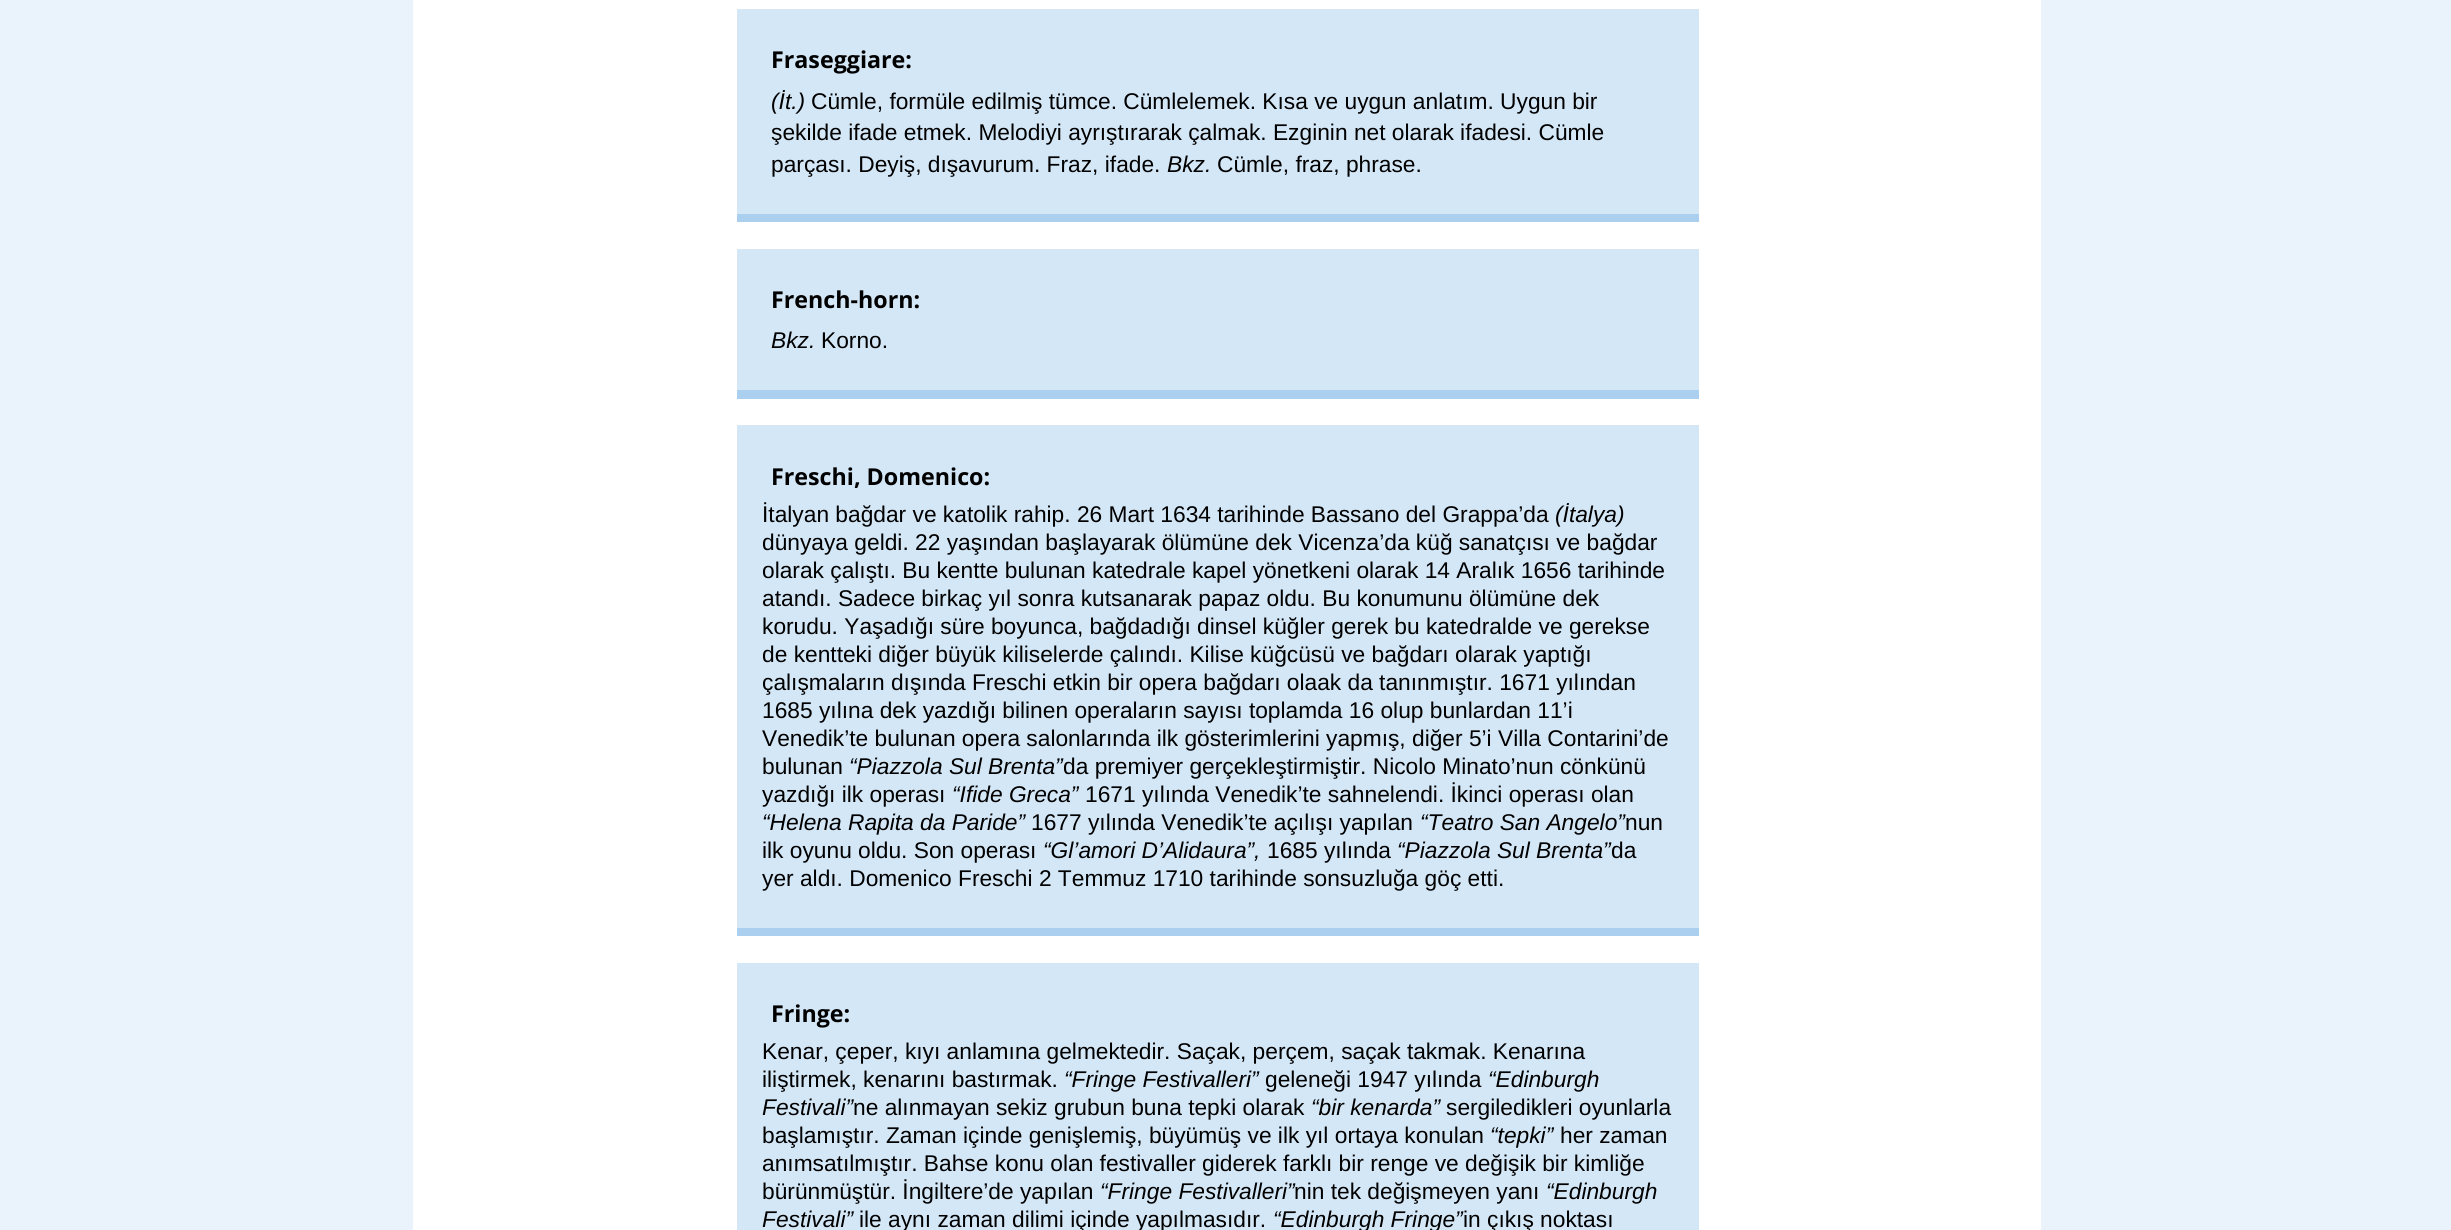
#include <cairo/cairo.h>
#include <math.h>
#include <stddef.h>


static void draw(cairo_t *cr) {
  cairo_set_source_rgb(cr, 234 / 255.0, 243 / 255.0, 251 / 255.0);
  cairo_paint(cr);
  cairo_set_source_rgb(cr, 1, 1, 1);
  cairo_rectangle(cr, 413, 0, 1628, 1230);
  cairo_fill(cr);
  cairo_set_source_rgb(cr, 212 / 255.0, 231 / 255.0, 247 / 255.0);
  cairo_rectangle(cr, 737, 9, 962, 205);
  cairo_fill(cr);
  cairo_set_source_rgb(cr, 170 / 255.0, 207 / 255.0, 239 / 255.0);
  cairo_rectangle(cr, 737, 214, 962, 8);
  cairo_fill(cr);
  cairo_set_source_rgb(cr, 212 / 255.0, 231 / 255.0, 247 / 255.0);
  cairo_rectangle(cr, 737, 249, 962, 141);
  cairo_fill(cr);
  cairo_set_source_rgb(cr, 170 / 255.0, 207 / 255.0, 239 / 255.0);
  cairo_rectangle(cr, 737, 390, 962, 9);
  cairo_fill(cr);
  cairo_set_source_rgb(cr, 212 / 255.0, 231 / 255.0, 247 / 255.0);
  cairo_rectangle(cr, 737, 425, 962, 503);
  cairo_fill(cr);
  cairo_set_source_rgb(cr, 170 / 255.0, 207 / 255.0, 239 / 255.0);
  cairo_rectangle(cr, 737, 928, 962, 8);
  cairo_fill(cr);
  cairo_set_source_rgb(cr, 212 / 255.0, 231 / 255.0, 247 / 255.0);
  cairo_rectangle(cr, 737, 963, 962, 267);
  cairo_fill(cr);
  cairo_select_font_face(cr, "Open Sans", CAIRO_FONT_SLANT_NORMAL, CAIRO_FONT_WEIGHT_BOLD);
  cairo_set_font_size(cr, 23.25);
  cairo_set_source_rgb(cr, 0, 0, 0);
  cairo_move_to(cr, 771, 68);
  cairo_show_text(cr, "Fraseggiare:");
  cairo_select_font_face(cr, "Liberation Sans", CAIRO_FONT_SLANT_ITALIC, CAIRO_FONT_WEIGHT_NORMAL);
  cairo_set_font_size(cr, 22.75);
  cairo_move_to(cr, 771, 109);
  cairo_show_text(cr, "(İt.)");
  cairo_select_font_face(cr, "Liberation Sans", CAIRO_FONT_SLANT_NORMAL, CAIRO_FONT_WEIGHT_NORMAL);
  cairo_move_to(cr, 811, 109);
  cairo_show_text(cr, "Cümle, formüle edilmiş tümce. Cümlelemek. Kısa ve uygun anlatım. Uygun bir");
  cairo_move_to(cr, 771, 140);
  cairo_show_text(cr, "şekilde ifade etmek. Melodiyi ayrıştırarak çalmak. Ezginin net olarak ifadesi. Cümle");
  cairo_move_to(cr, 771, 172);
  cairo_show_text(cr, "parçası. Deyiş, dışavurum. Fraz, ifade.");
  cairo_select_font_face(cr, "Liberation Sans", CAIRO_FONT_SLANT_ITALIC, CAIRO_FONT_WEIGHT_NORMAL);
  cairo_move_to(cr, 1167, 172);
  cairo_show_text(cr, "Bkz.");
  cairo_select_font_face(cr, "Liberation Sans", CAIRO_FONT_SLANT_NORMAL, CAIRO_FONT_WEIGHT_NORMAL);
  cairo_move_to(cr, 1217, 172);
  cairo_show_text(cr, "Cümle, fraz, phrase.");
  cairo_select_font_face(cr, "Open Sans", CAIRO_FONT_SLANT_NORMAL, CAIRO_FONT_WEIGHT_BOLD);
  cairo_set_font_size(cr, 23.25);
  cairo_move_to(cr, 771, 308);
  cairo_show_text(cr, "French-horn:");
  cairo_select_font_face(cr, "Liberation Sans", CAIRO_FONT_SLANT_ITALIC, CAIRO_FONT_WEIGHT_NORMAL);
  cairo_set_font_size(cr, 22.75);
  cairo_move_to(cr, 771, 348);
  cairo_show_text(cr, "Bkz.");
  cairo_select_font_face(cr, "Liberation Sans", CAIRO_FONT_SLANT_NORMAL, CAIRO_FONT_WEIGHT_NORMAL);
  cairo_move_to(cr, 821, 348);
  cairo_show_text(cr, "Korno.");
  cairo_select_font_face(cr, "Open Sans", CAIRO_FONT_SLANT_NORMAL, CAIRO_FONT_WEIGHT_BOLD);
  cairo_set_font_size(cr, 23.25);
  cairo_move_to(cr, 771, 485);
  cairo_show_text(cr, "Freschi, Domenico:");
  cairo_select_font_face(cr, "Liberation Sans", CAIRO_FONT_SLANT_NORMAL, CAIRO_FONT_WEIGHT_NORMAL);
  cairo_set_font_size(cr, 22.75);
  cairo_move_to(cr, 762, 522);
  cairo_show_text(cr, "İtalyan bağdar ve katolik rahip. 26 Mart 1634 tarihinde Bassano del Grappa’da");
  cairo_select_font_face(cr, "Liberation Sans", CAIRO_FONT_SLANT_ITALIC, CAIRO_FONT_WEIGHT_NORMAL);
  cairo_move_to(cr, 1555, 522);
  cairo_show_text(cr, "(İtalya)");
  cairo_select_font_face(cr, "Liberation Sans", CAIRO_FONT_SLANT_NORMAL, CAIRO_FONT_WEIGHT_NORMAL);
  cairo_move_to(cr, 762, 550);
  cairo_show_text(cr, "dünyaya geldi. 22 yaşından başlayarak ölümüne dek Vicenza’da küğ sanatçısı ve bağdar");
  cairo_move_to(cr, 762, 578);
  cairo_show_text(cr, "olarak çalıştı. Bu kentte bulunan katedrale kapel yönetkeni olarak 14 Aralık 1656 tarihinde");
  cairo_move_to(cr, 762, 606);
  cairo_show_text(cr, "atandı. Sadece birkaç yıl sonra kutsanarak papaz oldu. Bu konumunu ölümüne dek");
  cairo_move_to(cr, 762, 634);
  cairo_show_text(cr, "korudu. Yaşadığı süre boyunca, bağdadığı dinsel küğler gerek bu katedralde ve gerekse");
  cairo_move_to(cr, 762, 662);
  cairo_show_text(cr, "de kentteki diğer büyük kiliselerde çalındı. Kilise küğcüsü ve bağdarı olarak yaptığı");
  cairo_move_to(cr, 762, 690);
  cairo_show_text(cr, "çalışmaların dışında Freschi etkin bir opera bağdarı olaak da tanınmıştır. 1671 yılından");
  cairo_move_to(cr, 762, 718);
  cairo_show_text(cr, "1685 yılına dek yazdığı bilinen operaların sayısı toplamda 16 olup bunlardan 11’i");
  cairo_move_to(cr, 762, 746);
  cairo_show_text(cr, "Venedik’te bulunan opera salonlarında ilk gösterimlerini yapmış, diğer 5’i Villa Contarini’de");
  cairo_move_to(cr, 762, 774);
  cairo_show_text(cr, "bulunan");
  cairo_select_font_face(cr, "Liberation Sans", CAIRO_FONT_SLANT_ITALIC, CAIRO_FONT_WEIGHT_NORMAL);
  cairo_move_to(cr, 849, 774);
  cairo_show_text(cr, "“Piazzola Sul Brenta”");
  cairo_select_font_face(cr, "Liberation Sans", CAIRO_FONT_SLANT_NORMAL, CAIRO_FONT_WEIGHT_NORMAL);
  cairo_move_to(cr, 1063, 774);
  cairo_show_text(cr, "da premiyer gerçekleştirmiştir. Nicolo Minato’nun cönkünü");
  cairo_move_to(cr, 762, 802);
  cairo_show_text(cr, "yazdığı ilk operası");
  cairo_select_font_face(cr, "Liberation Sans", CAIRO_FONT_SLANT_ITALIC, CAIRO_FONT_WEIGHT_NORMAL);
  cairo_move_to(cr, 952, 802);
  cairo_show_text(cr, "“Ifide Greca”");
  cairo_select_font_face(cr, "Liberation Sans", CAIRO_FONT_SLANT_NORMAL, CAIRO_FONT_WEIGHT_NORMAL);
  cairo_move_to(cr, 1085, 802);
  cairo_show_text(cr, "1671 yılında Venedik’te sahnelendi. İkinci operası olan");
  cairo_select_font_face(cr, "Liberation Sans", CAIRO_FONT_SLANT_ITALIC, CAIRO_FONT_WEIGHT_NORMAL);
  cairo_move_to(cr, 762, 830);
  cairo_show_text(cr, "“Helena Rapita da Paride”");
  cairo_select_font_face(cr, "Liberation Sans", CAIRO_FONT_SLANT_NORMAL, CAIRO_FONT_WEIGHT_NORMAL);
  cairo_move_to(cr, 1031, 830);
  cairo_show_text(cr, "1677 yılında Venedik’te açılışı yapılan");
  cairo_select_font_face(cr, "Liberation Sans", CAIRO_FONT_SLANT_ITALIC, CAIRO_FONT_WEIGHT_NORMAL);
  cairo_move_to(cr, 1420, 830);
  cairo_show_text(cr, "“Teatro San Angelo”");
  cairo_select_font_face(cr, "Liberation Sans", CAIRO_FONT_SLANT_NORMAL, CAIRO_FONT_WEIGHT_NORMAL);
  cairo_move_to(cr, 1625, 830);
  cairo_show_text(cr, "nun");
  cairo_move_to(cr, 762, 858);
  cairo_show_text(cr, "ilk oyunu oldu. Son operası");
  cairo_select_font_face(cr, "Liberation Sans", CAIRO_FONT_SLANT_ITALIC, CAIRO_FONT_WEIGHT_NORMAL);
  cairo_move_to(cr, 1043, 858);
  cairo_show_text(cr, "“Gl’amori D’Alidaura”,");
  cairo_select_font_face(cr, "Liberation Sans", CAIRO_FONT_SLANT_NORMAL, CAIRO_FONT_WEIGHT_NORMAL);
  cairo_move_to(cr, 1267, 858);
  cairo_show_text(cr, "1685 yılında");
  cairo_select_font_face(cr, "Liberation Sans", CAIRO_FONT_SLANT_ITALIC, CAIRO_FONT_WEIGHT_NORMAL);
  cairo_move_to(cr, 1397, 858);
  cairo_show_text(cr, "“Piazzola Sul Brenta”");
  cairo_select_font_face(cr, "Liberation Sans", CAIRO_FONT_SLANT_NORMAL, CAIRO_FONT_WEIGHT_NORMAL);
  cairo_move_to(cr, 1611, 858);
  cairo_show_text(cr, "da");
  cairo_move_to(cr, 762, 886);
  cairo_show_text(cr, "yer aldı. Domenico Freschi 2 Temmuz 1710 tarihinde sonsuzluğa göç etti.");
  cairo_select_font_face(cr, "Open Sans", CAIRO_FONT_SLANT_NORMAL, CAIRO_FONT_WEIGHT_BOLD);
  cairo_set_font_size(cr, 23.25);
  cairo_move_to(cr, 771, 1022);
  cairo_show_text(cr, "Fringe:");
  cairo_select_font_face(cr, "Liberation Sans", CAIRO_FONT_SLANT_NORMAL, CAIRO_FONT_WEIGHT_NORMAL);
  cairo_set_font_size(cr, 22.75);
  cairo_move_to(cr, 762, 1059);
  cairo_show_text(cr, "Kenar, çeper, kıyı anlamına gelmektedir. Saçak, perçem, saçak takmak. Kenarına");
  cairo_move_to(cr, 762, 1087);
  cairo_show_text(cr, "iliştirmek, kenarını bastırmak.");
  cairo_select_font_face(cr, "Liberation Sans", CAIRO_FONT_SLANT_ITALIC, CAIRO_FONT_WEIGHT_NORMAL);
  cairo_move_to(cr, 1064, 1087);
  cairo_show_text(cr, "“Fringe Festivalleri”");
  cairo_select_font_face(cr, "Liberation Sans", CAIRO_FONT_SLANT_NORMAL, CAIRO_FONT_WEIGHT_NORMAL);
  cairo_move_to(cr, 1265, 1087);
  cairo_show_text(cr, "geleneği 1947 yılında");
  cairo_select_font_face(cr, "Liberation Sans", CAIRO_FONT_SLANT_ITALIC, CAIRO_FONT_WEIGHT_NORMAL);
  cairo_move_to(cr, 1488, 1087);
  cairo_show_text(cr, "“Edinburgh");
  cairo_move_to(cr, 762, 1115);
  cairo_show_text(cr, "Festivali”");
  cairo_select_font_face(cr, "Liberation Sans", CAIRO_FONT_SLANT_NORMAL, CAIRO_FONT_WEIGHT_NORMAL);
  cairo_move_to(cr, 853, 1115);
  cairo_show_text(cr, "ne alınmayan sekiz grubun buna tepki olarak");
  cairo_select_font_face(cr, "Liberation Sans", CAIRO_FONT_SLANT_ITALIC, CAIRO_FONT_WEIGHT_NORMAL);
  cairo_move_to(cr, 1311, 1115);
  cairo_show_text(cr, "“bir kenarda”");
  cairo_select_font_face(cr, "Liberation Sans", CAIRO_FONT_SLANT_NORMAL, CAIRO_FONT_WEIGHT_NORMAL);
  cairo_move_to(cr, 1446, 1115);
  cairo_show_text(cr, "sergiledikleri oyunlarla");
  cairo_move_to(cr, 762, 1143);
  cairo_show_text(cr, "başlamıştır. Zaman içinde genişlemiş, büyümüş ve ilk yıl ortaya konulan");
  cairo_select_font_face(cr, "Liberation Sans", CAIRO_FONT_SLANT_ITALIC, CAIRO_FONT_WEIGHT_NORMAL);
  cairo_move_to(cr, 1490, 1143);
  cairo_show_text(cr, "“tepki”");
  cairo_select_font_face(cr, "Liberation Sans", CAIRO_FONT_SLANT_NORMAL, CAIRO_FONT_WEIGHT_NORMAL);
  cairo_move_to(cr, 1560, 1143);
  cairo_show_text(cr, "her zaman");
  cairo_move_to(cr, 762, 1171);
  cairo_show_text(cr, "anımsatılmıştır. Bahse konu olan festivaller giderek farklı bir renge ve değişik bir kimliğe");
  cairo_move_to(cr, 762, 1199);
  cairo_show_text(cr, "bürünmüştür. İngiltere’de yapılan");
  cairo_select_font_face(cr, "Liberation Sans", CAIRO_FONT_SLANT_ITALIC, CAIRO_FONT_WEIGHT_NORMAL);
  cairo_move_to(cr, 1100, 1199);
  cairo_show_text(cr, "“Fringe Festivalleri”");
  cairo_select_font_face(cr, "Liberation Sans", CAIRO_FONT_SLANT_NORMAL, CAIRO_FONT_WEIGHT_NORMAL);
  cairo_move_to(cr, 1294, 1199);
  cairo_show_text(cr, "nin tek değişmeyen yanı");
  cairo_select_font_face(cr, "Liberation Sans", CAIRO_FONT_SLANT_ITALIC, CAIRO_FONT_WEIGHT_NORMAL);
  cairo_move_to(cr, 1546, 1199);
  cairo_show_text(cr, "“Edinburgh");
  cairo_move_to(cr, 762, 1227);
  cairo_show_text(cr, "Festivali”");
  cairo_select_font_face(cr, "Liberation Sans", CAIRO_FONT_SLANT_NORMAL, CAIRO_FONT_WEIGHT_NORMAL);
  cairo_move_to(cr, 859, 1227);
  cairo_show_text(cr, "ile aynı zaman dilimi içinde yapılmasıdır.");
  cairo_select_font_face(cr, "Liberation Sans", CAIRO_FONT_SLANT_ITALIC, CAIRO_FONT_WEIGHT_NORMAL);
  cairo_move_to(cr, 1273, 1227);
  cairo_show_text(cr, "“Edinburgh Fringe”");
  cairo_select_font_face(cr, "Liberation Sans", CAIRO_FONT_SLANT_NORMAL, CAIRO_FONT_WEIGHT_NORMAL);
  cairo_move_to(cr, 1463, 1227);
  cairo_show_text(cr, "in çıkış noktası");
}

int main(void) {
  cairo_surface_t *surface = cairo_image_surface_create(CAIRO_FORMAT_RGB24, 2451, 1230);
  cairo_t *cr = cairo_create(surface);
  cairo_font_options_t *options = cairo_font_options_create();
  cairo_font_options_set_hint_metrics(options, CAIRO_HINT_METRICS_OFF);
  cairo_font_options_set_hint_style(options, CAIRO_HINT_STYLE_NONE);
  cairo_set_font_options(cr, options);
  cairo_set_miter_limit(cr, 4);
  draw(cr);
  cairo_surface_write_to_png(surface, "out.png");
  cairo_font_options_destroy(options);
  cairo_destroy(cr);
  cairo_surface_destroy(surface);
  return 0;
}
